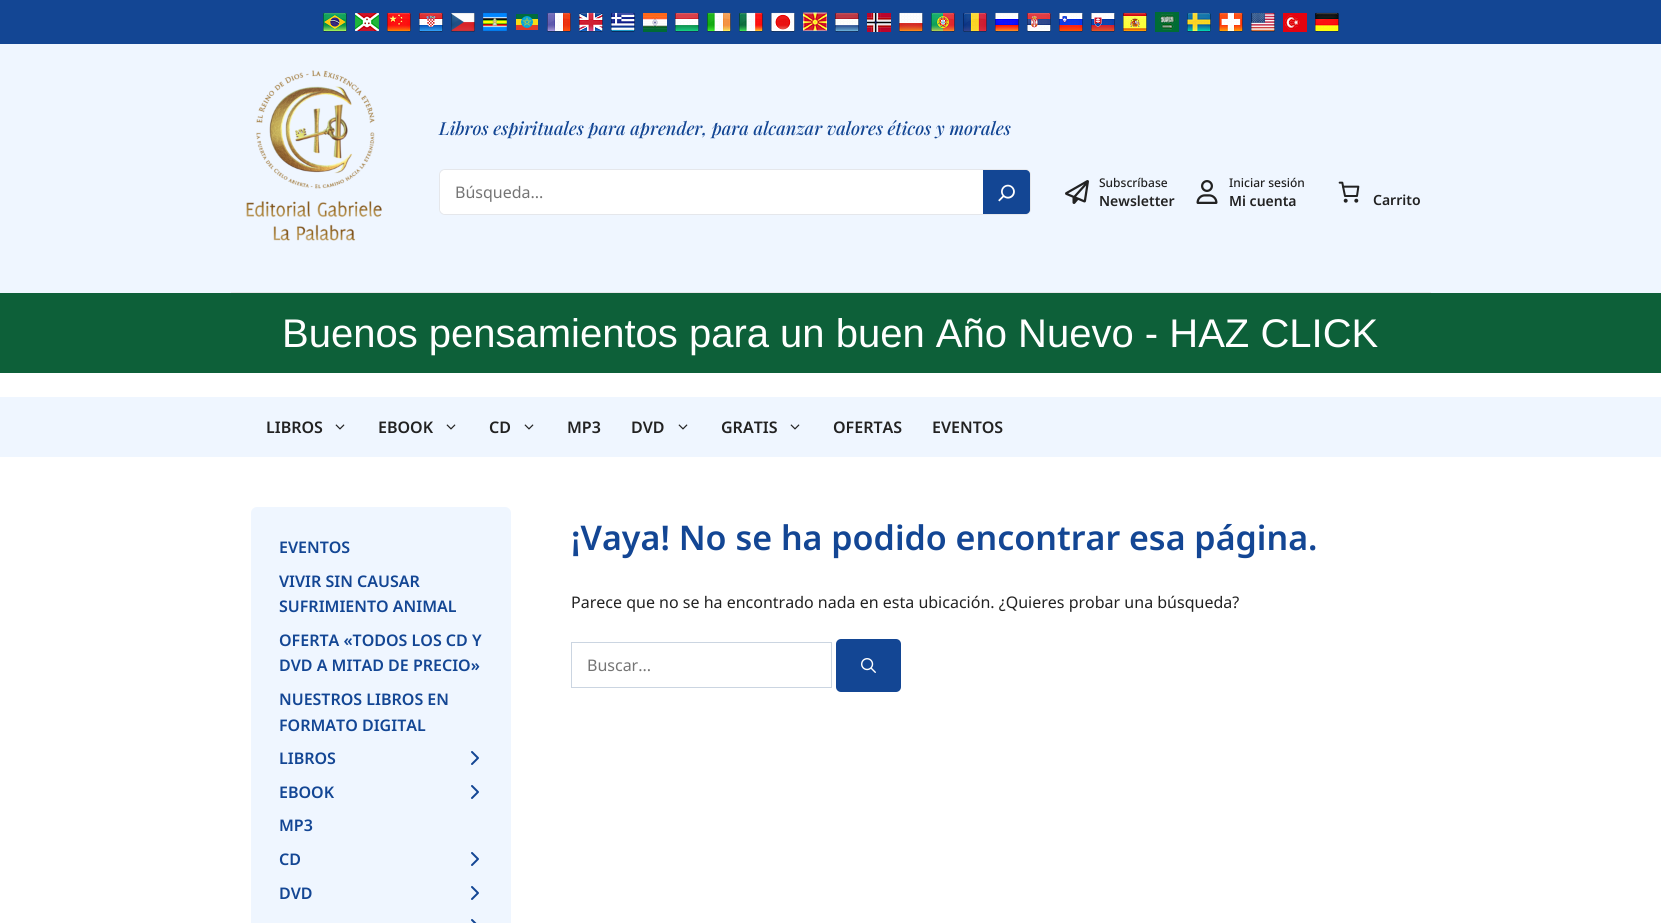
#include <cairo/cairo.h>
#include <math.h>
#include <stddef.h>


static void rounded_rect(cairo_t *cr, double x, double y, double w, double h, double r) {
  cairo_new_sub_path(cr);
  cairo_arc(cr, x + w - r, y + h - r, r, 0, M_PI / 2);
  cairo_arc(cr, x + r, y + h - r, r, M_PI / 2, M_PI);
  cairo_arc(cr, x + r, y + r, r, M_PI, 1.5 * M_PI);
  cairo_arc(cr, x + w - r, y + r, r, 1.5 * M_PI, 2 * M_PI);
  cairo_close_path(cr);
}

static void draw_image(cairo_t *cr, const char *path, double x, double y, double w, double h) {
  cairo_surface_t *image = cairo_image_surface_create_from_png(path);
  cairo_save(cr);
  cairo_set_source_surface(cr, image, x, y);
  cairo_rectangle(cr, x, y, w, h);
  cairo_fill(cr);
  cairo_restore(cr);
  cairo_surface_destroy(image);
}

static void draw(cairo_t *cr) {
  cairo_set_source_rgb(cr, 1, 1, 1);
  cairo_paint(cr);
  cairo_set_source_rgb(cr, 19 / 255.0, 70 / 255.0, 148 / 255.0);
  cairo_rectangle(cr, 0, 0, 1661, 44);
  cairo_fill(cr);
  draw_image(cr, "images/1.png", 323, 12, 24, 20);
  draw_image(cr, "images/2.png", 355, 13, 24, 18);
  draw_image(cr, "images/3.png", 387, 12, 24, 20);
  draw_image(cr, "images/4.png", 419, 12, 24, 20);
  draw_image(cr, "images/5.png", 451, 12, 24, 20);
  draw_image(cr, "images/6.png", 483, 13, 24, 18);
  draw_image(cr, "images/7.png", 516, 14, 22, 16);
  draw_image(cr, "images/8.png", 547, 12, 24, 20);
  draw_image(cr, "images/9.png", 579, 12, 24, 20);
  draw_image(cr, "images/10.png", 611, 12, 24, 20);
  draw_image(cr, "images/11.png", 643, 13, 24, 19);
  draw_image(cr, "images/12.png", 675, 13, 24, 19);
  draw_image(cr, "images/13.png", 707, 12, 24, 20);
  draw_image(cr, "images/14.png", 739, 12, 24, 20);
  draw_image(cr, "images/15.png", 771, 12, 24, 20);
  draw_image(cr, "images/16.png", 803, 12, 24, 19);
  draw_image(cr, "images/17.png", 835, 12, 24, 20);
  draw_image(cr, "images/18.png", 867, 13, 24, 19);
  draw_image(cr, "images/19.png", 899, 12, 24, 20);
  draw_image(cr, "images/20.png", 931, 12, 24, 20);
  draw_image(cr, "images/21.png", 963, 12, 24, 20);
  draw_image(cr, "images/22.png", 995, 12, 24, 20);
  draw_image(cr, "images/23.png", 1027, 13, 24, 19);
  draw_image(cr, "images/24.png", 1059, 12, 24, 20);
  draw_image(cr, "images/25.png", 1091, 13, 24, 19);
  draw_image(cr, "images/26.png", 1123, 12, 24, 20);
  draw_image(cr, "images/27.png", 1155, 12, 24, 20);
  draw_image(cr, "images/28.png", 1187, 12, 24, 20);
  draw_image(cr, "images/29.png", 1219, 12, 24, 20);
  draw_image(cr, "images/30.png", 1251, 13, 24, 19);
  draw_image(cr, "images/31.png", 1283, 13, 24, 19);
  draw_image(cr, "images/32.png", 1315, 12, 24, 20);
  cairo_set_source_rgb(cr, 239 / 255.0, 246 / 255.0, 1);
  cairo_rectangle(cr, 0, 44, 1661, 249);
  cairo_fill(cr);
  cairo_set_source_rgb(cr, 229 / 255.0, 231 / 255.0, 235 / 255.0);
  cairo_rectangle(cr, 231, 292, 1200, 1);
  cairo_fill(cr);
  draw_image(cr, "images/33.png", 246, 70, 136, 171);
  cairo_set_source_rgb(cr, 1, 1, 1);
  rounded_rect(cr, 439.5, 169.5, 591, 45, 5.5);
  cairo_fill_preserve(cr);
  cairo_set_source_rgb(cr, 229 / 255.0, 231 / 255.0, 235 / 255.0);
  cairo_set_line_width(cr, 1);
  cairo_stroke(cr);
  cairo_set_source_rgb(cr, 1, 1, 1);
  rounded_rect(cr, 440, 170, 533, 44, 6);
  cairo_fill(cr);
  cairo_set_source_rgb(cr, 19 / 255.0, 70 / 255.0, 148 / 255.0);
  cairo_new_path(cr);
  cairo_move_to(cr, 983, 170);
  cairo_line_to(cr, 1026, 170);
  cairo_curve_to(cr, 1028, 170, 1030, 172, 1030, 174);
  cairo_line_to(cr, 1030, 210);
  cairo_curve_to(cr, 1030, 212, 1028, 214, 1026, 214);
  cairo_line_to(cr, 983, 214);
  cairo_close_path(cr);
  cairo_fill(cr);
  draw_image(cr, "images/34.png", 998, 184, 17, 18);
  draw_image(cr, "images/35.png", 1065, 180, 24, 24);
  draw_image(cr, "images/36.png", 1196, 180, 22, 24);
  draw_image(cr, "images/37.png", 1338, 181, 22, 22);
  cairo_set_source_rgb(cr, 13 / 255.0, 96 / 255.0, 57 / 255.0);
  cairo_rectangle(cr, 0, 293, 1661, 80);
  cairo_fill(cr);
  cairo_set_source_rgb(cr, 239 / 255.0, 246 / 255.0, 1);
  cairo_rectangle(cr, 0, 397, 1661, 60);
  cairo_fill(cr);
  draw_image(cr, "images/38.png", 335, 424, 10, 6);
  draw_image(cr, "images/38.png", 446, 424, 10, 6);
  draw_image(cr, "images/38.png", 524, 424, 10, 6);
  draw_image(cr, "images/38.png", 678, 424, 10, 6);
  draw_image(cr, "images/38.png", 790, 424, 10, 6);
  rounded_rect(cr, 251, 507, 260, 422, 6);
  cairo_fill(cr);
  draw_image(cr, "images/39.png", 471, 751, 8, 14);
  draw_image(cr, "images/39.png", 471, 785, 8, 14);
  draw_image(cr, "images/39.png", 471, 852, 8, 14);
  draw_image(cr, "images/39.png", 471, 886, 8, 14);
  draw_image(cr, "images/40.png", 471, 919, 6, 4);
  cairo_rectangle(cr, 571.5, 642.5, 260, 45);
  cairo_set_source_rgb(cr, 203 / 255.0, 213 / 255.0, 225 / 255.0);
  cairo_stroke(cr);
  cairo_set_source_rgb(cr, 19 / 255.0, 70 / 255.0, 148 / 255.0);
  rounded_rect(cr, 836, 639, 65, 53, 5);
  cairo_fill(cr);
  draw_image(cr, "images/41.png", 861, 658, 15, 15);
  cairo_select_font_face(cr, "Playfair Display Medium", CAIRO_FONT_SLANT_ITALIC, CAIRO_FONT_WEIGHT_NORMAL);
  cairo_set_font_size(cr, 18);
  cairo_move_to(cr, 439, 135);
  cairo_show_text(cr, "Libros espirituales para aprender, para alcanzar valores éticos y morales");
  cairo_select_font_face(cr, "Noto Sans", CAIRO_FONT_SLANT_NORMAL, CAIRO_FONT_WEIGHT_NORMAL);
  cairo_set_font_size(cr, 16);
  cairo_set_source_rgb(cr, 117 / 255.0, 117 / 255.0, 117 / 255.0);
  cairo_move_to(cr, 455, 198);
  cairo_show_text(cr, "Búsqueda...");
  cairo_select_font_face(cr, "Noto Sans Medium", CAIRO_FONT_SLANT_NORMAL, CAIRO_FONT_WEIGHT_NORMAL);
  cairo_set_font_size(cr, 12);
  cairo_set_source_rgb(cr, 34 / 255.0, 34 / 255.0, 34 / 255.0);
  cairo_move_to(cr, 1099, 187);
  cairo_show_text(cr, "Subscríbase");
  cairo_select_font_face(cr, "Noto Sans SemiBold", CAIRO_FONT_SLANT_NORMAL, CAIRO_FONT_WEIGHT_NORMAL);
  cairo_set_font_size(cr, 14);
  cairo_move_to(cr, 1099, 206);
  cairo_show_text(cr, "Newsletter");
  cairo_select_font_face(cr, "Noto Sans Medium", CAIRO_FONT_SLANT_NORMAL, CAIRO_FONT_WEIGHT_NORMAL);
  cairo_set_font_size(cr, 12);
  cairo_move_to(cr, 1229, 187);
  cairo_show_text(cr, "Iniciar sesión");
  cairo_select_font_face(cr, "Noto Sans SemiBold", CAIRO_FONT_SLANT_NORMAL, CAIRO_FONT_WEIGHT_NORMAL);
  cairo_set_font_size(cr, 14);
  cairo_move_to(cr, 1229, 206);
  cairo_show_text(cr, "Mi cuenta");
  cairo_move_to(cr, 1373, 205);
  cairo_show_text(cr, "Carrito");
  cairo_select_font_face(cr, "Liberation Sans", CAIRO_FONT_SLANT_NORMAL, CAIRO_FONT_WEIGHT_NORMAL);
  cairo_set_font_size(cr, 40);
  cairo_set_source_rgb(cr, 1, 1, 1);
  cairo_move_to(cr, 282, 347);
  cairo_show_text(cr, "Buenos pensamientos para un buen Año Nuevo - HAZ CLICK");
  cairo_select_font_face(cr, "Noto Sans SemiBold", CAIRO_FONT_SLANT_NORMAL, CAIRO_FONT_WEIGHT_NORMAL);
  cairo_set_font_size(cr, 16);
  cairo_set_source_rgb(cr, 34 / 255.0, 34 / 255.0, 34 / 255.0);
  cairo_move_to(cr, 266, 433);
  cairo_show_text(cr, "LIBROS");
  cairo_move_to(cr, 378, 433);
  cairo_show_text(cr, "EBOOK");
  cairo_move_to(cr, 489, 433);
  cairo_show_text(cr, "CD");
  cairo_move_to(cr, 567, 433);
  cairo_show_text(cr, "MP3");
  cairo_move_to(cr, 631, 433);
  cairo_show_text(cr, "DVD");
  cairo_move_to(cr, 721, 433);
  cairo_show_text(cr, "GRATIS");
  cairo_move_to(cr, 833, 433);
  cairo_show_text(cr, "OFERTAS");
  cairo_move_to(cr, 932, 433);
  cairo_show_text(cr, "EVENTOS");
  cairo_set_source_rgb(cr, 19 / 255.0, 70 / 255.0, 148 / 255.0);
  cairo_move_to(cr, 279, 553);
  cairo_show_text(cr, "EVENTOS");
  cairo_move_to(cr, 279, 587);
  cairo_show_text(cr, "VIVIR SIN CAUSAR");
  cairo_move_to(cr, 279, 612);
  cairo_show_text(cr, "SUFRIMIENTO ANIMAL");
  cairo_move_to(cr, 279, 646);
  cairo_show_text(cr, "OFERTA «TODOS LOS CD Y");
  cairo_move_to(cr, 279, 671);
  cairo_show_text(cr, "DVD A MITAD DE PRECIO»");
  cairo_move_to(cr, 279, 705);
  cairo_show_text(cr, "NUESTROS LIBROS EN");
  cairo_move_to(cr, 279, 731);
  cairo_show_text(cr, "FORMATO DIGITAL");
  cairo_move_to(cr, 279, 764);
  cairo_show_text(cr, "LIBROS");
  cairo_move_to(cr, 279, 798);
  cairo_show_text(cr, "EBOOK");
  cairo_move_to(cr, 279, 831);
  cairo_show_text(cr, "MP3");
  cairo_move_to(cr, 279, 865);
  cairo_show_text(cr, "CD");
  cairo_move_to(cr, 279, 899);
  cairo_show_text(cr, "DVD");
  cairo_set_font_size(cr, 34);
  cairo_move_to(cr, 571, 550);
  cairo_show_text(cr, "¡Vaya! No se ha podido encontrar esa página.");
  cairo_select_font_face(cr, "Noto Sans", CAIRO_FONT_SLANT_NORMAL, CAIRO_FONT_WEIGHT_NORMAL);
  cairo_set_font_size(cr, 16);
  cairo_set_source_rgb(cr, 34 / 255.0, 34 / 255.0, 34 / 255.0);
  cairo_move_to(cr, 571, 608);
  cairo_show_text(cr, "Parece que no se ha encontrado nada en esta ubicación. ¿Quieres probar una búsqueda?");
  cairo_set_source_rgb(cr, 117 / 255.0, 117 / 255.0, 117 / 255.0);
  cairo_move_to(cr, 587, 671);
  cairo_show_text(cr, "Buscar...");
}

int main(void) {
  cairo_surface_t *surface = cairo_image_surface_create(CAIRO_FORMAT_RGB24, 1661, 923);
  cairo_t *cr = cairo_create(surface);
  cairo_font_options_t *options = cairo_font_options_create();
  cairo_font_options_set_hint_metrics(options, CAIRO_HINT_METRICS_OFF);
  cairo_font_options_set_hint_style(options, CAIRO_HINT_STYLE_NONE);
  cairo_set_font_options(cr, options);
  cairo_set_miter_limit(cr, 4);
  draw(cr);
  cairo_surface_write_to_png(surface, "out.png");
  cairo_font_options_destroy(options);
  cairo_destroy(cr);
  cairo_surface_destroy(surface);
  return 0;
}
